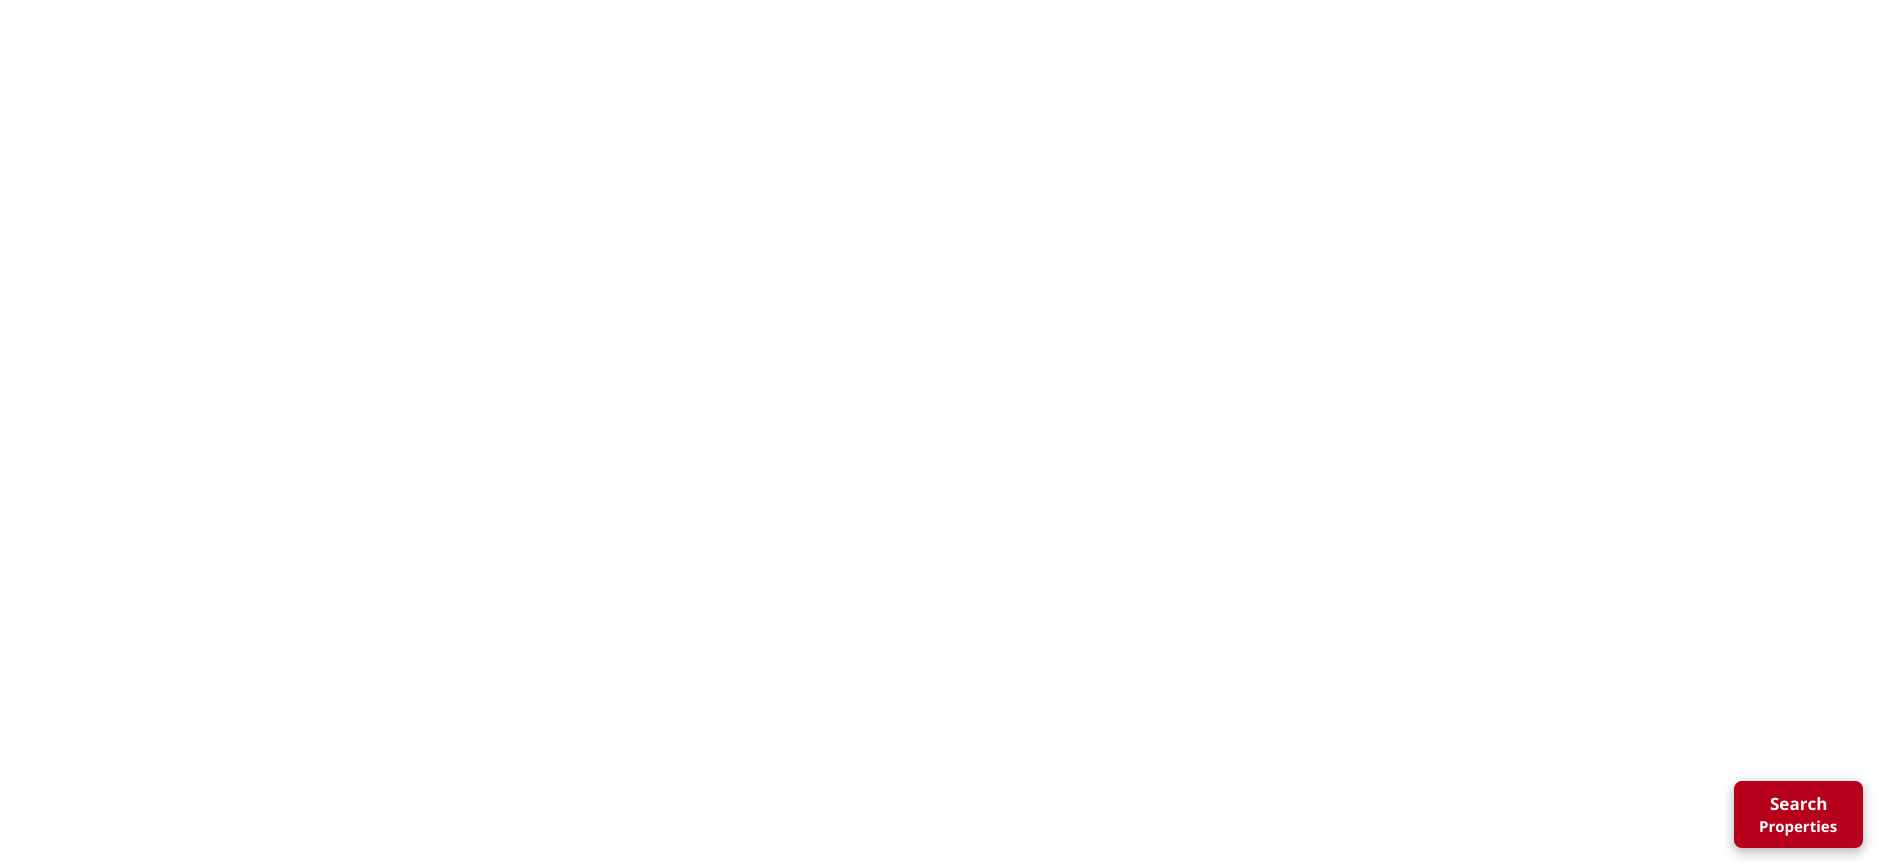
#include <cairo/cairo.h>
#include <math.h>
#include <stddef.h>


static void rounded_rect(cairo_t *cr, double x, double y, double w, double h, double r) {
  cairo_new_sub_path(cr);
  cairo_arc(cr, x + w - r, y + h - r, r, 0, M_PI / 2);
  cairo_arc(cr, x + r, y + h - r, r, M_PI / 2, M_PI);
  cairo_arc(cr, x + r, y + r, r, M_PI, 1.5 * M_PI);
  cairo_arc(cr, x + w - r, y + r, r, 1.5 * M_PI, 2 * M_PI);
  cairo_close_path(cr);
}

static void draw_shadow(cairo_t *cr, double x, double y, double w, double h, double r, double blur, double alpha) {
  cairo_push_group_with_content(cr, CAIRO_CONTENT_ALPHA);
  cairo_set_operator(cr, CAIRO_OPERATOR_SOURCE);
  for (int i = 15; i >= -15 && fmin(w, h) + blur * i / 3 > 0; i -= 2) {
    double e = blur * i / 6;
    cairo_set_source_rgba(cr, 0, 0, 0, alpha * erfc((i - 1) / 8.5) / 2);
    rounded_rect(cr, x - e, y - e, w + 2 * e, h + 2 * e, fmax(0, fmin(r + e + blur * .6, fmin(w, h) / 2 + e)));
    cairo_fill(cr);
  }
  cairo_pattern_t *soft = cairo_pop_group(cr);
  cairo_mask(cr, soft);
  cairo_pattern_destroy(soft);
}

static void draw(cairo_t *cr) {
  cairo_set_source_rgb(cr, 1, 1, 1);
  cairo_paint(cr);
  cairo_set_source_rgb(cr, 0, 0, 0);
  draw_shadow(cr, 1734, 785, 129, 67, 8, 6, 0.3);
  cairo_set_source_rgb(cr, 183 / 255.0, 0, 27 / 255.0);
  rounded_rect(cr, 1734, 781, 129, 67, 8);
  cairo_fill(cr);
  cairo_select_font_face(cr, "Open Sans", CAIRO_FONT_SLANT_NORMAL, CAIRO_FONT_WEIGHT_BOLD);
  cairo_set_font_size(cr, 17);
  cairo_set_source_rgb(cr, 1, 1, 1);
  cairo_move_to(cr, 1770, 810);
  cairo_show_text(cr, "Search");
  cairo_set_font_size(cr, 15);
  cairo_move_to(cr, 1759, 832);
  cairo_show_text(cr, "Properties");
}

int main(void) {
  cairo_surface_t *surface = cairo_image_surface_create(CAIRO_FORMAT_RGB24, 1879, 864);
  cairo_t *cr = cairo_create(surface);
  cairo_font_options_t *options = cairo_font_options_create();
  cairo_font_options_set_hint_metrics(options, CAIRO_HINT_METRICS_OFF);
  cairo_font_options_set_hint_style(options, CAIRO_HINT_STYLE_NONE);
  cairo_set_font_options(cr, options);
  cairo_set_miter_limit(cr, 4);
  draw(cr);
  cairo_surface_write_to_png(surface, "out.png");
  cairo_font_options_destroy(options);
  cairo_destroy(cr);
  cairo_surface_destroy(surface);
  return 0;
}
